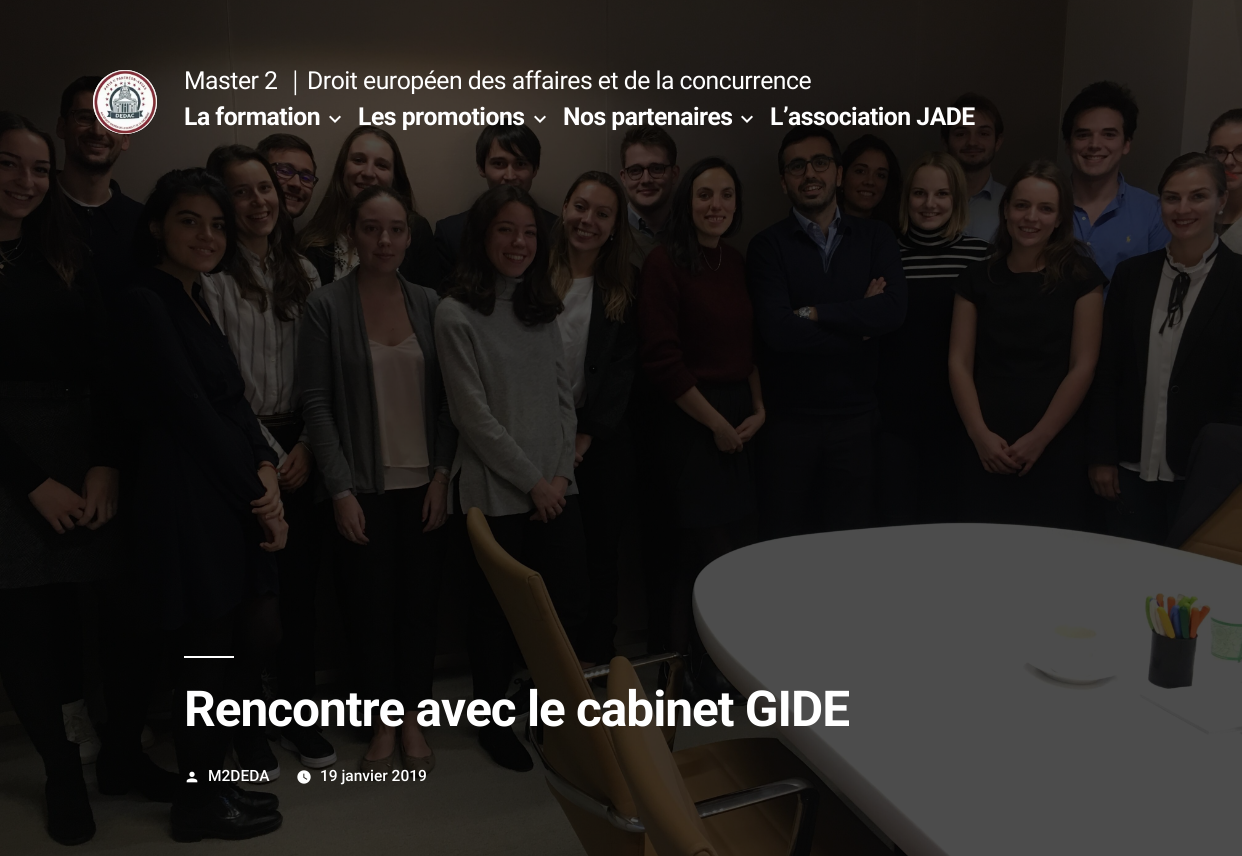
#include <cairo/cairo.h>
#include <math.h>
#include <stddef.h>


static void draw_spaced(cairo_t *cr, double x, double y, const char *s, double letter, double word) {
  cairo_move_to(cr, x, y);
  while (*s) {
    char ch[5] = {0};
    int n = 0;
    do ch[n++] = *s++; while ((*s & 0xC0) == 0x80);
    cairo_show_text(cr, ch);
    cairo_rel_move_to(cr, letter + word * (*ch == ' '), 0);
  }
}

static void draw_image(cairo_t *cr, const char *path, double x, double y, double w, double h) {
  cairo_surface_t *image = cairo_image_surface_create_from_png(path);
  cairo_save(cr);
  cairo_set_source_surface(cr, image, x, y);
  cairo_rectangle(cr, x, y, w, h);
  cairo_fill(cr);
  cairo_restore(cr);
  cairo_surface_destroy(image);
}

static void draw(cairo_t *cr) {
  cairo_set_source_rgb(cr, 1, 1, 1);
  cairo_paint(cr);
  draw_image(cr, "images/5.png", 0, 0, 1242, 856);
  cairo_set_source_rgb(cr, 1, 1, 1);
  cairo_arc(cr, 125, 102, 32, 0, 2 * M_PI);
  cairo_fill(cr);
  draw_image(cr, "images/1.png", 93, 70, 64, 64);
  draw_image(cr, "images/2.png", 329, 115, 12, 8);
  draw_image(cr, "images/3.png", 534, 115, 12, 8);
  draw_image(cr, "images/4.png", 741, 115, 12, 8);
  cairo_rectangle(cr, 184, 656, 50, 2);
  cairo_fill(cr);
  draw_image(cr, "images/6.png", 186, 771, 12, 12);
  draw_image(cr, "images/7.png", 297, 770, 14, 14);
  cairo_select_font_face(cr, "Roboto", CAIRO_FONT_SLANT_NORMAL, CAIRO_FONT_WEIGHT_NORMAL);
  cairo_set_font_size(cr, 24.75);
  draw_spaced(cr, 184, 89, "Master 2", -0.5, 0);
  cairo_select_font_face(cr, "WenQuanYi Zen Hei Medium", CAIRO_FONT_SLANT_NORMAL, CAIRO_FONT_WEIGHT_NORMAL);
  draw_spaced(cr, 283, 89, "｜", -0.5, 0);
  cairo_select_font_face(cr, "Roboto", CAIRO_FONT_SLANT_NORMAL, CAIRO_FONT_WEIGHT_NORMAL);
  draw_spaced(cr, 307, 89, "Droit européen des affaires et de la concurrence", -0.5, 0);
  cairo_select_font_face(cr, "Roboto", CAIRO_FONT_SLANT_NORMAL, CAIRO_FONT_WEIGHT_BOLD);
  draw_spaced(cr, 184, 125, "La formation", -0.5, 0);
  draw_spaced(cr, 358, 125, "Les promotions", -0.5, 0);
  draw_spaced(cr, 563, 125, "Nos partenaires", -0.5, 0);
  draw_spaced(cr, 770, 125, "L’association JADE", -0.5, 0);
  cairo_set_font_size(cr, 49.5);
  draw_spaced(cr, 184, 726, "Rencontre avec le cabinet GIDE", -1, 0);
  cairo_select_font_face(cr, "Roboto Medium", CAIRO_FONT_SLANT_NORMAL, CAIRO_FONT_WEIGHT_NORMAL);
  cairo_set_font_size(cr, 15.5);
  cairo_move_to(cr, 208, 781);
  cairo_show_text(cr, "M2DEDA");
  cairo_move_to(cr, 320, 781);
  cairo_show_text(cr, "19 janvier 2019");
}

int main(void) {
  cairo_surface_t *surface = cairo_image_surface_create(CAIRO_FORMAT_RGB24, 1242, 856);
  cairo_t *cr = cairo_create(surface);
  cairo_font_options_t *options = cairo_font_options_create();
  cairo_font_options_set_hint_metrics(options, CAIRO_HINT_METRICS_OFF);
  cairo_font_options_set_hint_style(options, CAIRO_HINT_STYLE_NONE);
  cairo_set_font_options(cr, options);
  cairo_set_miter_limit(cr, 4);
  draw(cr);
  cairo_surface_write_to_png(surface, "out.png");
  cairo_font_options_destroy(options);
  cairo_destroy(cr);
  cairo_surface_destroy(surface);
  return 0;
}
